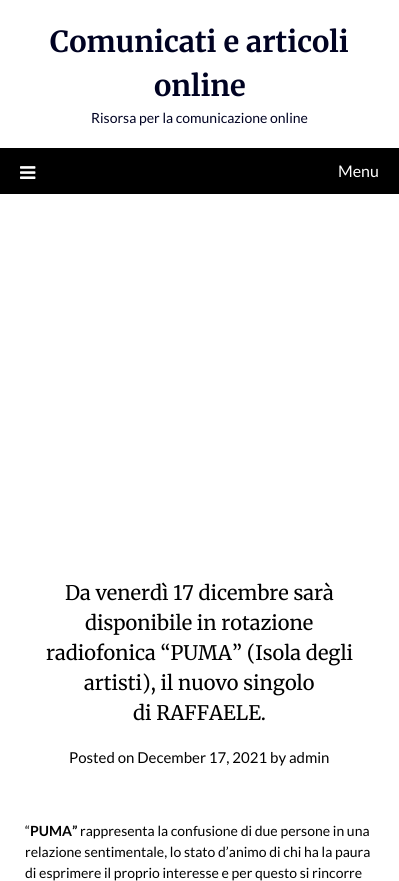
#include <cairo/cairo.h>
#include <math.h>
#include <stddef.h>


static void draw_image(cairo_t *cr, const char *path, double x, double y, double w, double h) {
  cairo_surface_t *image = cairo_image_surface_create_from_png(path);
  cairo_save(cr);
  cairo_set_source_surface(cr, image, x, y);
  cairo_rectangle(cr, x, y, w, h);
  cairo_fill(cr);
  cairo_restore(cr);
  cairo_surface_destroy(image);
}

static void draw(cairo_t *cr) {
  cairo_set_source_rgb(cr, 1, 1, 1);
  cairo_paint(cr);
  cairo_set_source_rgb(cr, 0, 0, 0);
  cairo_rectangle(cr, 0, 148, 399, 46);
  cairo_fill(cr);
  draw_image(cr, "images/1.png", 20, 166, 16, 13);
  cairo_select_font_face(cr, "Merriweather", CAIRO_FONT_SLANT_NORMAL, CAIRO_FONT_WEIGHT_BOLD);
  cairo_set_font_size(cr, 29);
  cairo_set_source_rgb(cr, 0, 2 / 255.0, 34 / 255.0);
  cairo_move_to(cr, 50, 52);
  cairo_show_text(cr, "Comunicati e articoli");
  cairo_move_to(cr, 154, 96);
  cairo_show_text(cr, "online");
  cairo_select_font_face(cr, "Lato", CAIRO_FONT_SLANT_NORMAL, CAIRO_FONT_WEIGHT_NORMAL);
  cairo_set_font_size(cr, 14);
  cairo_move_to(cr, 91, 123);
  cairo_show_text(cr, "Risorsa per la comunicazione online");
  cairo_set_font_size(cr, 16);
  cairo_set_source_rgb(cr, 1, 1, 1);
  cairo_move_to(cr, 338, 177);
  cairo_show_text(cr, "Menu");
  cairo_select_font_face(cr, "Merriweather", CAIRO_FONT_SLANT_NORMAL, CAIRO_FONT_WEIGHT_NORMAL);
  cairo_set_font_size(cr, 20);
  cairo_set_source_rgb(cr, 0, 0, 0);
  cairo_move_to(cr, 65, 600);
  cairo_show_text(cr, "Da venerdì 17 dicembre sarà");
  cairo_move_to(cr, 85, 630);
  cairo_show_text(cr, "disponibile in rotazione");
  cairo_move_to(cr, 46, 660);
  cairo_show_text(cr, "radiofonica “PUMA” (Isola degli");
  cairo_move_to(cr, 84, 690);
  cairo_show_text(cr, "artisti), il nuovo singolo");
  cairo_move_to(cr, 133, 720);
  cairo_show_text(cr, "di RAFFAELE.");
  cairo_select_font_face(cr, "Lato", CAIRO_FONT_SLANT_NORMAL, CAIRO_FONT_WEIGHT_NORMAL);
  cairo_set_font_size(cr, 15);
  cairo_move_to(cr, 69, 763);
  cairo_show_text(cr, "Posted on December 17, 2021 by admin");
  cairo_set_font_size(cr, 14);
  cairo_move_to(cr, 25, 836);
  cairo_show_text(cr, "“");
  cairo_select_font_face(cr, "Lato", CAIRO_FONT_SLANT_NORMAL, CAIRO_FONT_WEIGHT_BOLD);
  cairo_move_to(cr, 30, 836);
  cairo_show_text(cr, "PUMA”");
  cairo_select_font_face(cr, "Lato", CAIRO_FONT_SLANT_NORMAL, CAIRO_FONT_WEIGHT_NORMAL);
  cairo_move_to(cr, 80, 836);
  cairo_show_text(cr, "rappresenta la confusione di due persone in una");
  cairo_move_to(cr, 25, 857);
  cairo_show_text(cr, "relazione sentimentale, lo stato d’animo di chi ha la paura");
  cairo_move_to(cr, 25, 878);
  cairo_show_text(cr, "di esprimere il proprio interesse e per questo si rincorre");
}

int main(void) {
  cairo_surface_t *surface = cairo_image_surface_create(CAIRO_FORMAT_RGB24, 399, 881);
  cairo_t *cr = cairo_create(surface);
  cairo_font_options_t *options = cairo_font_options_create();
  cairo_font_options_set_hint_metrics(options, CAIRO_HINT_METRICS_OFF);
  cairo_font_options_set_hint_style(options, CAIRO_HINT_STYLE_NONE);
  cairo_set_font_options(cr, options);
  cairo_set_miter_limit(cr, 4);
  draw(cr);
  cairo_surface_write_to_png(surface, "out.png");
  cairo_font_options_destroy(options);
  cairo_destroy(cr);
  cairo_surface_destroy(surface);
  return 0;
}
